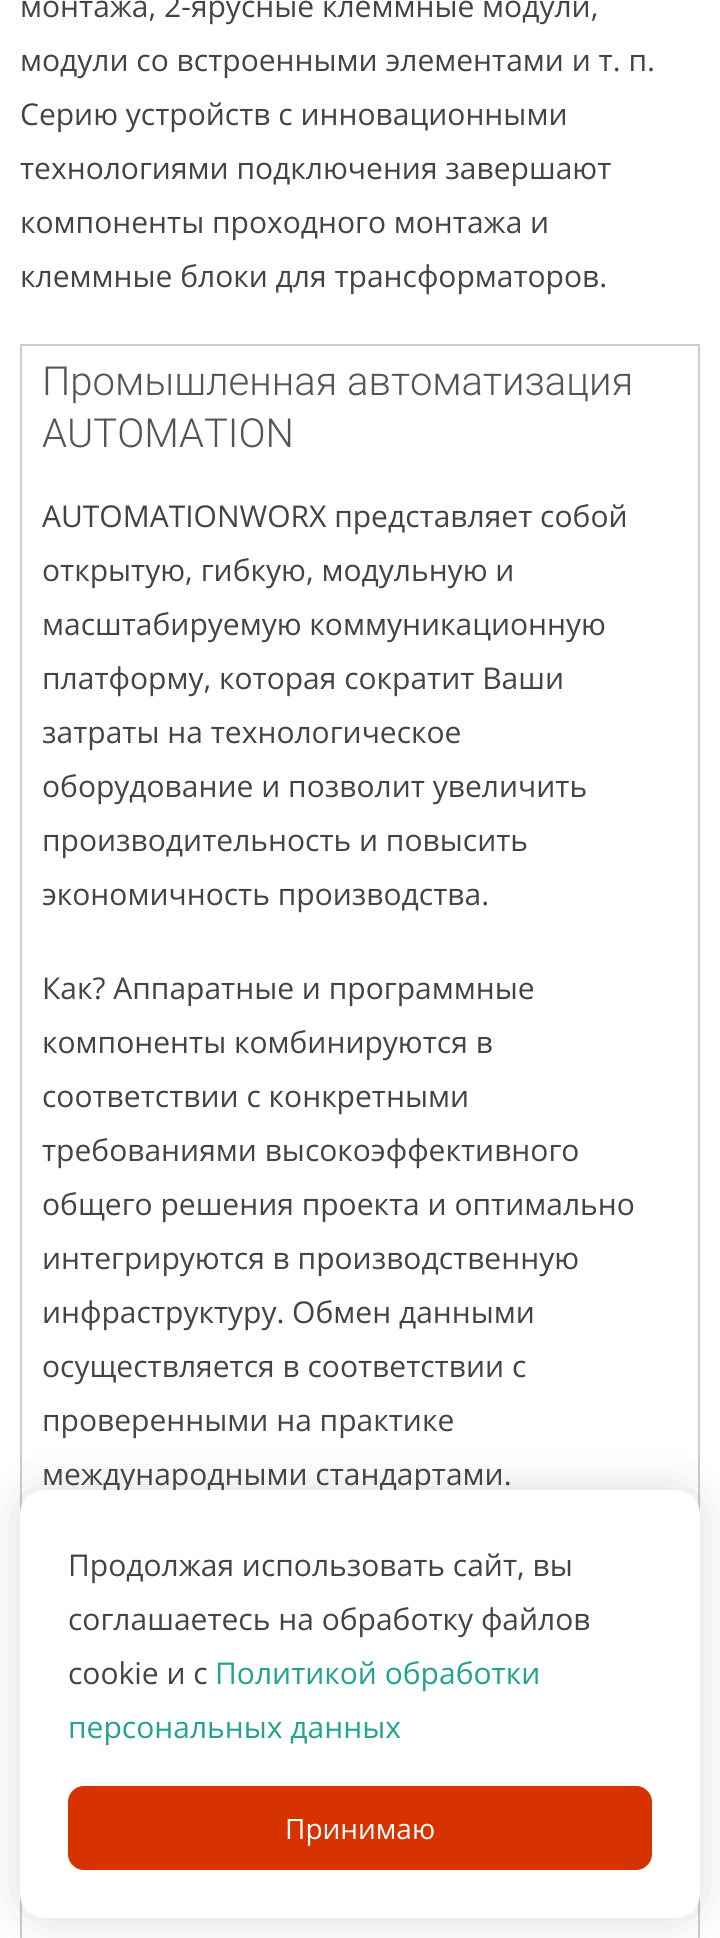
#include <cairo/cairo.h>
#include <math.h>
#include <stddef.h>


static void rounded_rect(cairo_t *cr, double x, double y, double w, double h, double r) {
  cairo_new_sub_path(cr);
  cairo_arc(cr, x + w - r, y + h - r, r, 0, M_PI / 2);
  cairo_arc(cr, x + r, y + h - r, r, M_PI / 2, M_PI);
  cairo_arc(cr, x + r, y + r, r, M_PI, 1.5 * M_PI);
  cairo_arc(cr, x + w - r, y + r, r, 1.5 * M_PI, 2 * M_PI);
  cairo_close_path(cr);
}

static void draw_shadow(cairo_t *cr, double x, double y, double w, double h, double r, double blur, double alpha) {
  cairo_push_group_with_content(cr, CAIRO_CONTENT_ALPHA);
  cairo_set_operator(cr, CAIRO_OPERATOR_SOURCE);
  for (int i = 15; i >= -15 && fmin(w, h) + blur * i / 3 > 0; i -= 2) {
    double e = blur * i / 6;
    cairo_set_source_rgba(cr, 0, 0, 0, alpha * erfc((i - 1) / 8.5) / 2);
    rounded_rect(cr, x - e, y - e, w + 2 * e, h + 2 * e, fmax(0, fmin(r + e + blur * .6, fmin(w, h) / 2 + e)));
    cairo_fill(cr);
  }
  cairo_pattern_t *soft = cairo_pop_group(cr);
  cairo_mask(cr, soft);
  cairo_pattern_destroy(soft);
}

static void draw(cairo_t *cr) {
  cairo_set_source_rgb(cr, 1, 1, 1);
  cairo_paint(cr);
  cairo_set_source_rgb(cr, 204 / 255.0, 204 / 255.0, 204 / 255.0);
  cairo_rectangle(cr, 20, 344, 680, 2);
  cairo_fill(cr);
  cairo_rectangle(cr, 698, 344, 2, 1170);
  cairo_fill(cr);
  cairo_rectangle(cr, 20, 344, 2, 1170);
  cairo_fill(cr);
  cairo_rectangle(cr, 698, 1894, 2, 44);
  cairo_fill(cr);
  cairo_rectangle(cr, 20, 1894, 2, 44);
  cairo_fill(cr);
  cairo_set_source_rgb(cr, 25 / 255.0, 25 / 255.0, 25 / 255.0);
  draw_shadow(cr, 20, 1490, 680, 428, 24, 24, 0.15);
  cairo_select_font_face(cr, "Open Sans", CAIRO_FONT_SLANT_NORMAL, CAIRO_FONT_WEIGHT_NORMAL);
  cairo_set_font_size(cr, 30);
  cairo_set_source_rgb(cr, 68 / 255.0, 68 / 255.0, 68 / 255.0);
  cairo_move_to(cr, 20, 17);
  cairo_show_text(cr, "монтажа, 2-ярусные клеммные модули,");
  cairo_move_to(cr, 20, 71);
  cairo_show_text(cr, "модули со встроенными элементами и т. п.");
  cairo_move_to(cr, 20, 125);
  cairo_show_text(cr, "Серию устройств с инновационными");
  cairo_move_to(cr, 20, 179);
  cairo_show_text(cr, "технологиями подключения завершают");
  cairo_move_to(cr, 20, 233);
  cairo_show_text(cr, "компоненты проходного монтажа и");
  cairo_move_to(cr, 20, 287);
  cairo_show_text(cr, "клеммные блоки для трансформаторов.");
  cairo_select_font_face(cr, "Roboto Light", CAIRO_FONT_SLANT_NORMAL, CAIRO_FONT_WEIGHT_NORMAL);
  cairo_set_font_size(cr, 40);
  cairo_set_source_rgb(cr, 85 / 255.0, 85 / 255.0, 85 / 255.0);
  cairo_move_to(cr, 42, 395);
  cairo_show_text(cr, "Промышленная автоматизация");
  cairo_move_to(cr, 42, 447);
  cairo_show_text(cr, "AUTOMATION");
  cairo_select_font_face(cr, "Open Sans", CAIRO_FONT_SLANT_NORMAL, CAIRO_FONT_WEIGHT_NORMAL);
  cairo_set_font_size(cr, 30);
  cairo_set_source_rgb(cr, 68 / 255.0, 68 / 255.0, 68 / 255.0);
  cairo_move_to(cr, 42, 527);
  cairo_show_text(cr, "AUTOMATIONWORX представляет собой");
  cairo_move_to(cr, 42, 581);
  cairo_show_text(cr, "открытую, гибкую, модульную и");
  cairo_move_to(cr, 42, 635);
  cairo_show_text(cr, "масштабируемую коммуникационную");
  cairo_move_to(cr, 42, 689);
  cairo_show_text(cr, "платформу, которая сократит Ваши");
  cairo_move_to(cr, 42, 743);
  cairo_show_text(cr, "затраты на технологическое");
  cairo_move_to(cr, 42, 797);
  cairo_show_text(cr, "оборудование и позволит увеличить");
  cairo_move_to(cr, 42, 851);
  cairo_show_text(cr, "производительность и повысить");
  cairo_move_to(cr, 42, 905);
  cairo_show_text(cr, "экономичность производства.");
  cairo_move_to(cr, 42, 999);
  cairo_show_text(cr, "Как? Аппаратные и программные");
  cairo_move_to(cr, 42, 1053);
  cairo_show_text(cr, "компоненты комбинируются в");
  cairo_move_to(cr, 42, 1107);
  cairo_show_text(cr, "соответствии с конкретными");
  cairo_move_to(cr, 42, 1161);
  cairo_show_text(cr, "требованиями высокоэффективного");
  cairo_move_to(cr, 42, 1215);
  cairo_show_text(cr, "общего решения проекта и оптимально");
  cairo_move_to(cr, 42, 1269);
  cairo_show_text(cr, "интегрируются в производственную");
  cairo_move_to(cr, 42, 1323);
  cairo_show_text(cr, "инфраструктуру. Обмен данными");
  cairo_move_to(cr, 42, 1377);
  cairo_show_text(cr, "осуществляется в соответствии с");
  cairo_move_to(cr, 42, 1431);
  cairo_show_text(cr, "проверенными на практике");
  cairo_move_to(cr, 42, 1485);
  cairo_show_text(cr, "международными стандартами.");
  cairo_set_source_rgb(cr, 1, 1, 1);
  rounded_rect(cr, 20, 1490, 680, 428, 24);
  cairo_fill(cr);
  cairo_set_source_rgb(cr, 68 / 255.0, 68 / 255.0, 68 / 255.0);
  cairo_move_to(cr, 68, 1576);
  cairo_show_text(cr, "Продолжая использовать сайт, вы");
  cairo_move_to(cr, 68, 1630);
  cairo_show_text(cr, "соглашаетесь на обработку файлов");
  cairo_move_to(cr, 68, 1684);
  cairo_show_text(cr, "cookie и c");
  cairo_set_source_rgb(cr, 35 / 255.0, 163 / 255.0, 143 / 255.0);
  cairo_move_to(cr, 215, 1684);
  cairo_show_text(cr, "Политикой обработки");
  cairo_move_to(cr, 68, 1738);
  cairo_show_text(cr, "персональных данных");
  cairo_set_source_rgb(cr, 215 / 255.0, 51 / 255.0, 1 / 255.0);
  rounded_rect(cr, 68, 1786, 584, 84, 16);
  cairo_fill(cr);
  cairo_set_font_size(cr, 28);
  cairo_set_source_rgb(cr, 1, 1, 1);
  cairo_move_to(cr, 285, 1839);
  cairo_show_text(cr, "Принимаю");
}

int main(void) {
  cairo_surface_t *surface = cairo_image_surface_create(CAIRO_FORMAT_RGB24, 720, 1938);
  cairo_t *cr = cairo_create(surface);
  cairo_font_options_t *options = cairo_font_options_create();
  cairo_font_options_set_hint_metrics(options, CAIRO_HINT_METRICS_OFF);
  cairo_font_options_set_hint_style(options, CAIRO_HINT_STYLE_NONE);
  cairo_set_font_options(cr, options);
  cairo_set_miter_limit(cr, 4);
  draw(cr);
  cairo_surface_write_to_png(surface, "out.png");
  cairo_font_options_destroy(options);
  cairo_destroy(cr);
  cairo_surface_destroy(surface);
  return 0;
}
